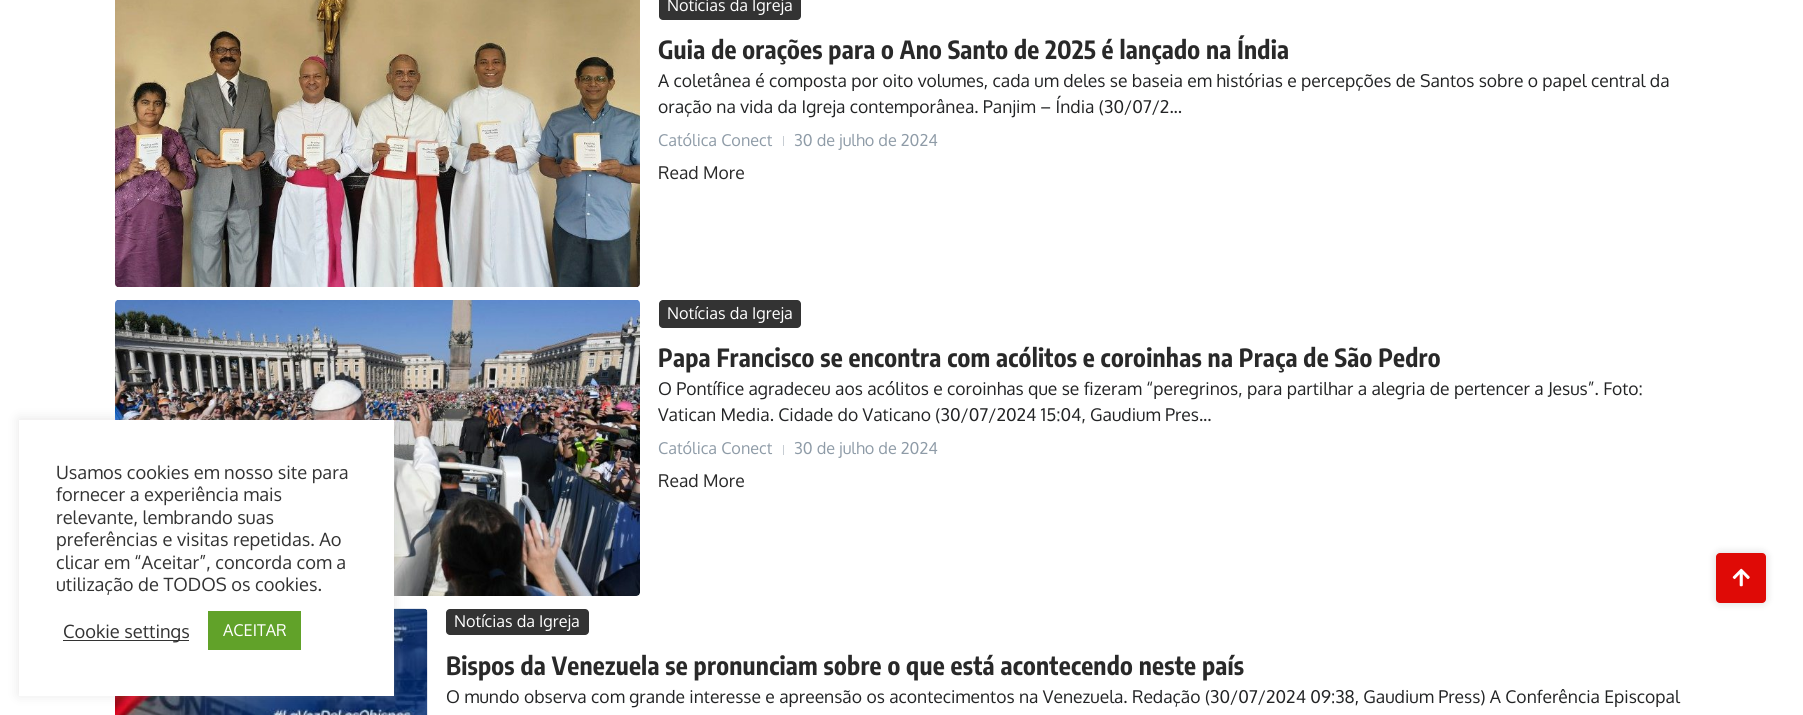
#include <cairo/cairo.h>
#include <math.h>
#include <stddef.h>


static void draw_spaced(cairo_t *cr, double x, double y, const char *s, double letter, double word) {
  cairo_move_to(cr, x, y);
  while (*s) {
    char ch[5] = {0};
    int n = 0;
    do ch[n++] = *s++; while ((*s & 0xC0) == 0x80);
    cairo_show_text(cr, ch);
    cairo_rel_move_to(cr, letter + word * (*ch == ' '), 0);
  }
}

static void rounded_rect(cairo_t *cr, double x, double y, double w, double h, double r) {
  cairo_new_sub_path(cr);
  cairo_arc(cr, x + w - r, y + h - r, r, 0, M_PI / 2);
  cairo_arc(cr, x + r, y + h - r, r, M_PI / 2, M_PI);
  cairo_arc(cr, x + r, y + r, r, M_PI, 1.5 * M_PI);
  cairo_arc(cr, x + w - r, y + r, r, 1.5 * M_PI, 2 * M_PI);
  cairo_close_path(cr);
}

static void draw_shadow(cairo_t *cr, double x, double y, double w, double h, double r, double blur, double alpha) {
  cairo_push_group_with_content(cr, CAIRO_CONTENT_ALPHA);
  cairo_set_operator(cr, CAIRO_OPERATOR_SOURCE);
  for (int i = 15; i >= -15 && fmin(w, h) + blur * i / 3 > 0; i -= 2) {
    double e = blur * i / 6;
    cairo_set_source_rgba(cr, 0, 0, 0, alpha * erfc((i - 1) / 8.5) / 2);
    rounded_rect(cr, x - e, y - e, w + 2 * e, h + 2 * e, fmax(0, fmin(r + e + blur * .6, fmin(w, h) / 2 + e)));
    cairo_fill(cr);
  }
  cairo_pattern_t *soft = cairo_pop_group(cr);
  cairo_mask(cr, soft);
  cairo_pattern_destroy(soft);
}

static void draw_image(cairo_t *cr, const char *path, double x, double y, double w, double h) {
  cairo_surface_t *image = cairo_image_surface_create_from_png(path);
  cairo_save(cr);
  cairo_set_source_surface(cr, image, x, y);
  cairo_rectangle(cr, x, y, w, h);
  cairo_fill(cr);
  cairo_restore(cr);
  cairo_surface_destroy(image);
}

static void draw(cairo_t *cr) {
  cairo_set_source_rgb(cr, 1, 1, 1);
  cairo_paint(cr);
  draw_image(cr, "images/2.png", 115, 300, 525, 296);
  draw_image(cr, "images/3.png", 115, 608, 313, 107);
  cairo_set_source_rgb(cr, 172 / 255.0, 171 / 255.0, 171 / 255.0);
  draw_shadow(cr, 19, 419, 375, 276, 0, 6, 0.3);
  cairo_set_source_rgb(cr, 1, 1, 1);
  cairo_rectangle(cr, 19, 420, 375, 276);
  cairo_fill(cr);
  cairo_set_source_rgb(cr, 51 / 255.0, 51 / 255.0, 51 / 255.0);
  cairo_rectangle(cr, 63, 640, 126, 1);
  cairo_fill(cr);
  cairo_set_source_rgb(cr, 97 / 255.0, 162 / 255.0, 41 / 255.0);
  cairo_rectangle(cr, 208, 611, 93, 39);
  cairo_fill(cr);
  draw_image(cr, "images/1.png", 115, 0, 525, 287);
  cairo_set_source_rgb(cr, 51 / 255.0, 51 / 255.0, 51 / 255.0);
  rounded_rect(cr, 659, -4, 142, 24, 4);
  cairo_fill(cr);
  cairo_set_source_rgb(cr, 199 / 255.0, 205 / 255.0, 211 / 255.0);
  cairo_rectangle(cr, 783, 136, 1, 10);
  cairo_fill(cr);
  cairo_set_source_rgb(cr, 51 / 255.0, 51 / 255.0, 51 / 255.0);
  rounded_rect(cr, 659, 300, 142, 28, 4);
  cairo_fill(cr);
  cairo_set_source_rgb(cr, 199 / 255.0, 205 / 255.0, 211 / 255.0);
  cairo_rectangle(cr, 783, 445, 1, 10);
  cairo_fill(cr);
  cairo_set_source_rgb(cr, 51 / 255.0, 51 / 255.0, 51 / 255.0);
  rounded_rect(cr, 446, 609, 143, 26, 4);
  cairo_fill(cr);
  cairo_set_source_rgb(cr, 0, 0, 0);
  draw_shadow(cr, 1716, 553, 50, 50, 4, 4.5, 0.15);
  cairo_set_source_rgb(cr, 223 / 255.0, 10 / 255.0, 6 / 255.0);
  rounded_rect(cr, 1716, 553, 50, 50, 4);
  cairo_fill(cr);
  draw_image(cr, "images/4.png", 1732, 568, 18, 19);
  cairo_select_font_face(cr, "Oxygen", CAIRO_FONT_SLANT_NORMAL, CAIRO_FONT_WEIGHT_NORMAL);
  cairo_set_font_size(cr, 18.3);
  cairo_set_source_rgb(cr, 51 / 255.0, 51 / 255.0, 51 / 255.0);
  cairo_move_to(cr, 56, 479);
  cairo_show_text(cr, "Usamos cookies em nosso site para");
  cairo_move_to(cr, 56, 501);
  cairo_show_text(cr, "fornecer a experiência mais");
  cairo_move_to(cr, 56, 524);
  cairo_show_text(cr, "relevante, lembrando suas");
  cairo_move_to(cr, 56, 546);
  cairo_show_text(cr, "preferências e visitas repetidas. Ao");
  cairo_move_to(cr, 56, 569);
  cairo_show_text(cr, "clicar em “Aceitar”, concorda com a");
  cairo_move_to(cr, 56, 591);
  cairo_show_text(cr, "utilização de TODOS os cookies.");
  cairo_move_to(cr, 63, 638);
  cairo_show_text(cr, "Cookie settings");
  cairo_set_font_size(cr, 16.25);
  cairo_set_source_rgb(cr, 1, 1, 1);
  cairo_move_to(cr, 223, 636);
  cairo_show_text(cr, "ACEITAR");
  cairo_move_to(cr, 667, 11);
  cairo_show_text(cr, "Notícias da Igreja");
  cairo_select_font_face(cr, "Encode Sans Condensed", CAIRO_FONT_SLANT_NORMAL, CAIRO_FONT_WEIGHT_BOLD);
  cairo_set_font_size(cr, 25);
  cairo_set_source_rgb(cr, 41 / 255.0, 41 / 255.0, 41 / 255.0);
  draw_spaced(cr, 658, 59, "Guia de orações para o Ano Santo de 2025 é lançado na Índia", 0.25, 0);
  cairo_select_font_face(cr, "Oxygen", CAIRO_FONT_SLANT_NORMAL, CAIRO_FONT_WEIGHT_NORMAL);
  cairo_set_font_size(cr, 17.5);
  cairo_set_source_rgb(cr, 35 / 255.0, 36 / 255.0, 37 / 255.0);
  cairo_move_to(cr, 658, 87);
  cairo_show_text(cr, "A coletânea é composta por oito volumes, cada um deles se baseia em histórias e percepções de Santos sobre o papel central da");
  cairo_move_to(cr, 658, 113);
  cairo_show_text(cr, "oração na vida da Igreja contemporânea. Panjim – Índia (30/07/2...");
  cairo_set_font_size(cr, 16.25);
  cairo_set_source_rgb(cr, 142 / 255.0, 155 / 255.0, 167 / 255.0);
  cairo_move_to(cr, 658, 146);
  cairo_show_text(cr, "Católica Conect");
  cairo_move_to(cr, 794, 146);
  cairo_show_text(cr, "30 de julho de 2024");
  cairo_set_font_size(cr, 17.5);
  cairo_set_source_rgb(cr, 41 / 255.0, 41 / 255.0, 41 / 255.0);
  cairo_move_to(cr, 658, 179);
  cairo_show_text(cr, "Read More");
  cairo_set_font_size(cr, 16.25);
  cairo_set_source_rgb(cr, 1, 1, 1);
  cairo_move_to(cr, 667, 319);
  cairo_show_text(cr, "Notícias da Igreja");
  cairo_select_font_face(cr, "Encode Sans Condensed", CAIRO_FONT_SLANT_NORMAL, CAIRO_FONT_WEIGHT_BOLD);
  cairo_set_font_size(cr, 25);
  cairo_set_source_rgb(cr, 41 / 255.0, 41 / 255.0, 41 / 255.0);
  draw_spaced(cr, 658, 367, "Papa Francisco se encontra com acólitos e coroinhas na Praça de São Pedro", 0.25, 0);
  cairo_select_font_face(cr, "Oxygen", CAIRO_FONT_SLANT_NORMAL, CAIRO_FONT_WEIGHT_NORMAL);
  cairo_set_font_size(cr, 17.5);
  cairo_set_source_rgb(cr, 35 / 255.0, 36 / 255.0, 37 / 255.0);
  cairo_move_to(cr, 658, 395);
  cairo_show_text(cr, "O Pontífice agradeceu aos acólitos e coroinhas que se fizeram “peregrinos, para partilhar a alegria de pertencer a Jesus”. Foto:");
  cairo_move_to(cr, 658, 421);
  cairo_show_text(cr, "Vatican Media. Cidade do Vaticano (30/07/2024 15:04, Gaudium Pres...");
  cairo_set_font_size(cr, 16.25);
  cairo_set_source_rgb(cr, 142 / 255.0, 155 / 255.0, 167 / 255.0);
  cairo_move_to(cr, 658, 454);
  cairo_show_text(cr, "Católica Conect");
  cairo_move_to(cr, 794, 454);
  cairo_show_text(cr, "30 de julho de 2024");
  cairo_set_font_size(cr, 17.5);
  cairo_set_source_rgb(cr, 41 / 255.0, 41 / 255.0, 41 / 255.0);
  cairo_move_to(cr, 658, 487);
  cairo_show_text(cr, "Read More");
  cairo_set_font_size(cr, 16.25);
  cairo_set_source_rgb(cr, 1, 1, 1);
  cairo_move_to(cr, 454, 627);
  cairo_show_text(cr, "Notícias da Igreja");
  cairo_select_font_face(cr, "Encode Sans Condensed", CAIRO_FONT_SLANT_NORMAL, CAIRO_FONT_WEIGHT_BOLD);
  cairo_set_font_size(cr, 25);
  cairo_set_source_rgb(cr, 41 / 255.0, 41 / 255.0, 41 / 255.0);
  draw_spaced(cr, 446, 675, "Bispos da Venezuela se pronunciam sobre o que está acontecendo neste país", 0.25, 0);
  cairo_select_font_face(cr, "Oxygen", CAIRO_FONT_SLANT_NORMAL, CAIRO_FONT_WEIGHT_NORMAL);
  cairo_set_font_size(cr, 17.5);
  cairo_set_source_rgb(cr, 35 / 255.0, 36 / 255.0, 37 / 255.0);
  cairo_move_to(cr, 446, 703);
  cairo_show_text(cr, "O mundo observa com grande interesse e apreensão os acontecimentos na Venezuela. Redação (30/07/2024 09:38, Gaudium Press) A Conferência Episcopal");
}

int main(void) {
  cairo_surface_t *surface = cairo_image_surface_create(CAIRO_FORMAT_RGB24, 1803, 715);
  cairo_t *cr = cairo_create(surface);
  cairo_font_options_t *options = cairo_font_options_create();
  cairo_font_options_set_hint_metrics(options, CAIRO_HINT_METRICS_OFF);
  cairo_font_options_set_hint_style(options, CAIRO_HINT_STYLE_NONE);
  cairo_set_font_options(cr, options);
  cairo_set_miter_limit(cr, 4);
  draw(cr);
  cairo_surface_write_to_png(surface, "out.png");
  cairo_font_options_destroy(options);
  cairo_destroy(cr);
  cairo_surface_destroy(surface);
  return 0;
}
